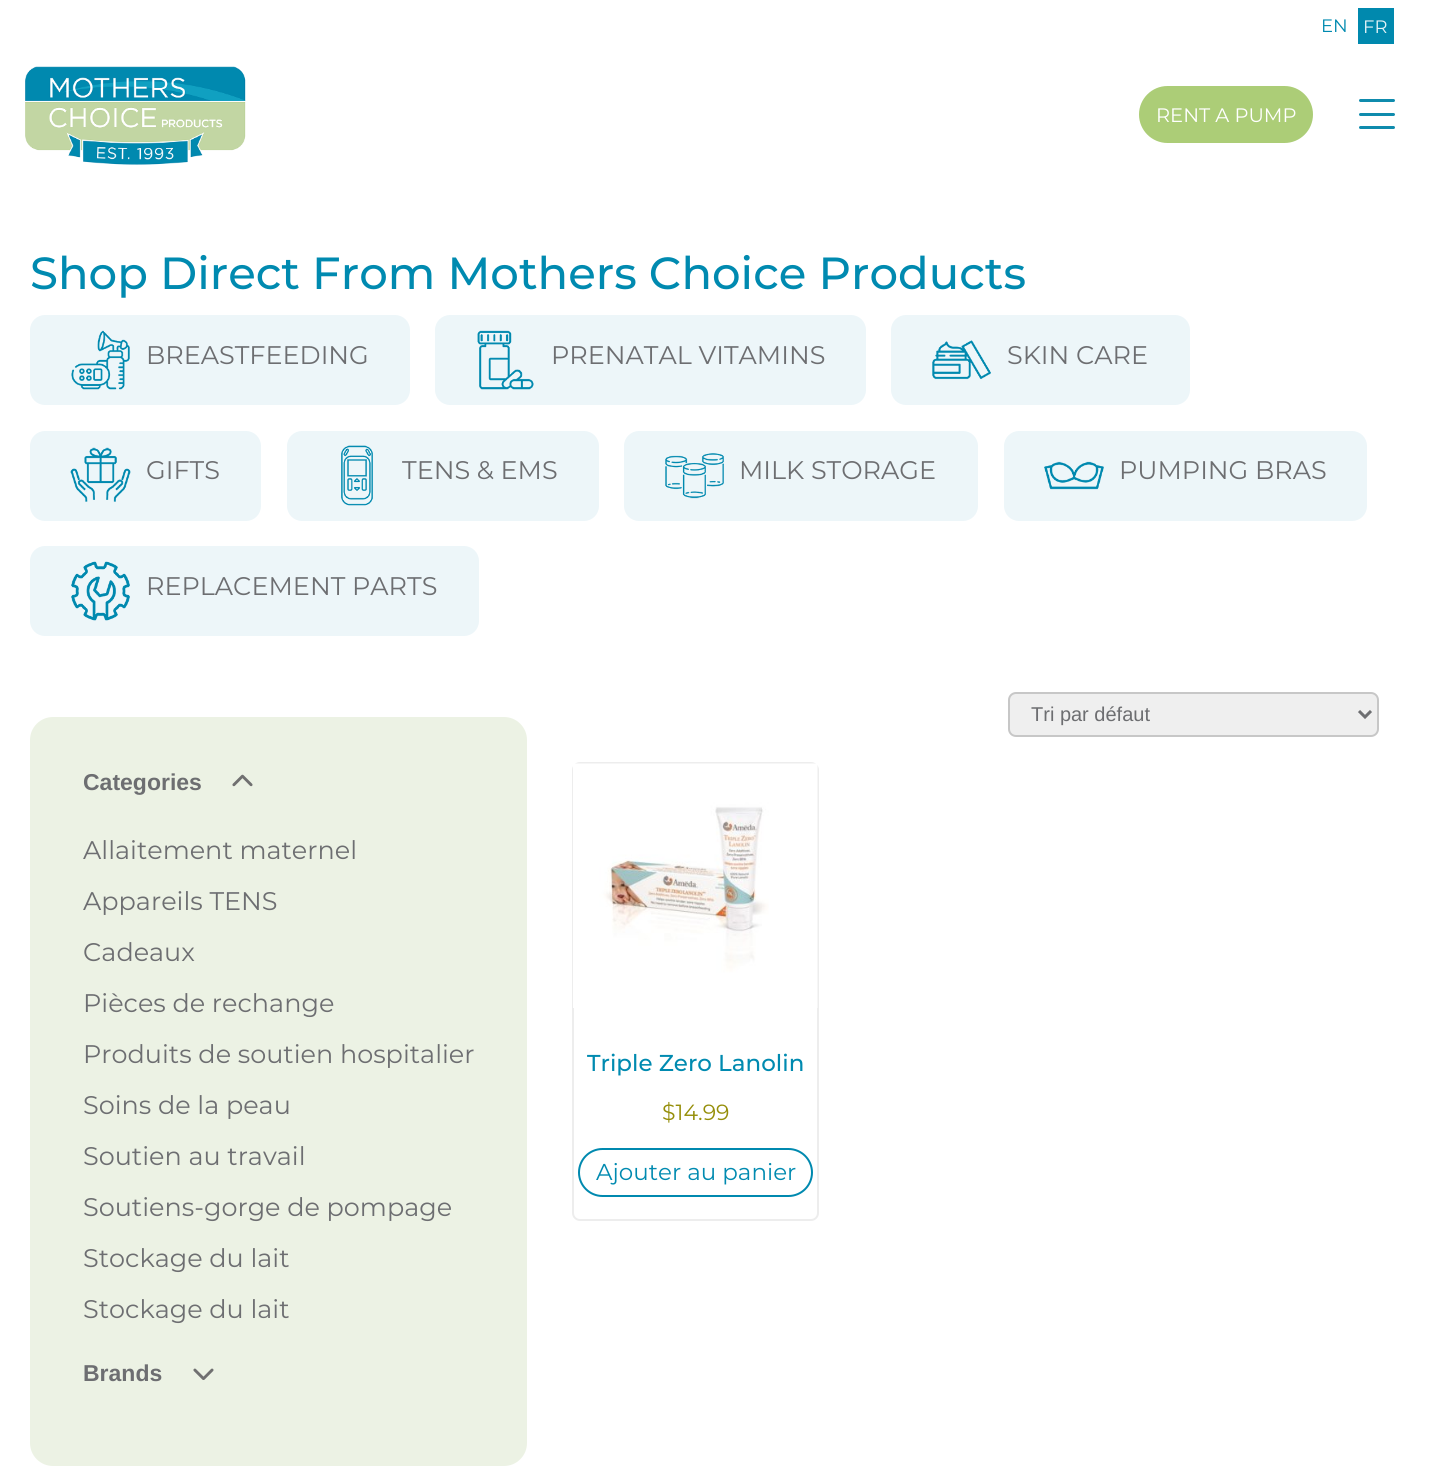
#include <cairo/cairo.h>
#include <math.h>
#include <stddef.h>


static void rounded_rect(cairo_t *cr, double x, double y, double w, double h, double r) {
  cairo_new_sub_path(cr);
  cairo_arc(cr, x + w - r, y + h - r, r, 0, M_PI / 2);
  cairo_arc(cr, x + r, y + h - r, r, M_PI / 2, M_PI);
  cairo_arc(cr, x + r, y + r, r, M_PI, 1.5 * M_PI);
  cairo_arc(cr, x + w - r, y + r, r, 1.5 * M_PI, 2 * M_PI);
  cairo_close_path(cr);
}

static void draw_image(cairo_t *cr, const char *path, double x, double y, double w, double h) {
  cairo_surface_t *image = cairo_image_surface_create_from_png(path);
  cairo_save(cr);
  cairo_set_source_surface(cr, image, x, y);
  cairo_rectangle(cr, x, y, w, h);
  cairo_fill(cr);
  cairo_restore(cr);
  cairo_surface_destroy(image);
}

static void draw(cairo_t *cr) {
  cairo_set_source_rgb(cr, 1, 1, 1);
  cairo_paint(cr);
  cairo_set_source_rgb(cr, 0, 137 / 255.0, 174 / 255.0);
  cairo_rectangle(cr, 1358, 8, 36, 36);
  cairo_fill(cr);
  draw_image(cr, "images/1.png", 25, 66, 221, 99);
  cairo_set_source_rgb(cr, 172 / 255.0, 205 / 255.0, 119 / 255.0);
  rounded_rect(cr, 1140, 87, 172, 55, 27.5);
  cairo_fill_preserve(cr);
  cairo_stroke(cr);
  cairo_set_source_rgb(cr, 15 / 255.0, 139 / 255.0, 173 / 255.0);
  rounded_rect(cr, 1359, 99, 36, 3, 1.5);
  cairo_fill(cr);
  rounded_rect(cr, 1359, 113, 36, 3, 1.5);
  cairo_fill(cr);
  rounded_rect(cr, 1359, 126, 36, 3, 1.5);
  cairo_fill(cr);
  cairo_set_source_rgb(cr, 237 / 255.0, 246 / 255.0, 249 / 255.0);
  rounded_rect(cr, 30, 315, 380, 90, 15);
  cairo_fill(cr);
  draw_image(cr, "images/2.png", 71, 330, 59, 60);
  rounded_rect(cr, 435, 315, 431, 90, 15);
  cairo_fill(cr);
  draw_image(cr, "images/3.png", 477, 330, 57, 60);
  rounded_rect(cr, 891, 315, 299, 90, 15);
  cairo_fill(cr);
  draw_image(cr, "images/4.png", 932, 340, 59, 40);
  rounded_rect(cr, 30, 431, 231, 90, 15);
  cairo_fill(cr);
  draw_image(cr, "images/5.png", 70, 447, 61, 55);
  rounded_rect(cr, 287, 431, 312, 90, 15);
  cairo_fill(cr);
  draw_image(cr, "images/6.png", 341, 445, 32, 61);
  rounded_rect(cr, 624, 431, 354, 90, 15);
  cairo_fill(cr);
  draw_image(cr, "images/7.png", 665, 453, 59, 46);
  rounded_rect(cr, 1004, 431, 363, 90, 15);
  cairo_fill(cr);
  draw_image(cr, "images/8.png", 1044, 461, 60, 29);
  rounded_rect(cr, 30, 546, 449, 90, 15);
  cairo_fill(cr);
  draw_image(cr, "images/9.png", 71, 561, 59, 60);
  cairo_set_source_rgb(cr, 236 / 255.0, 242 / 255.0, 228 / 255.0);
  rounded_rect(cr, 30, 717, 497, 749, 23);
  cairo_fill(cr);
  draw_image(cr, "images/10.png", 232, 774, 21, 13);
  draw_image(cr, "images/11.png", 193, 1368, 21, 12);
  cairo_set_source_rgb(cr, 239 / 255.0, 239 / 255.0, 239 / 255.0);
  rounded_rect(cr, 1009, 693, 369, 43, 7);
  cairo_fill_preserve(cr);
  cairo_set_source_rgb(cr, 199 / 255.0, 199 / 255.0, 199 / 255.0);
  cairo_stroke(cr);
  cairo_new_path(cr);
  cairo_move_to(cr, 1359, 711);
  cairo_line_to(cr, 1365, 717);
  cairo_line_to(cr, 1371, 711);
  cairo_set_source_rgb(cr, 109 / 255.0, 110 / 255.0, 113 / 255.0);
  cairo_set_line_width(cr, 3);
  cairo_stroke(cr);
  rounded_rect(cr, 573, 763, 245, 457, 7);
  cairo_set_source_rgb(cr, 237 / 255.0, 237 / 255.0, 237 / 255.0);
  cairo_set_line_width(cr, 2);
  cairo_stroke(cr);
  draw_image(cr, "images/12.png", 573, 763, 245, 245);
  rounded_rect(cr, 579, 1149, 233, 47, 23.5);
  cairo_set_source_rgb(cr, 0, 137 / 255.0, 175 / 255.0);
  cairo_stroke(cr);
  cairo_select_font_face(cr, "Montserrat", CAIRO_FONT_SLANT_NORMAL, CAIRO_FONT_WEIGHT_NORMAL);
  cairo_set_font_size(cr, 18);
  cairo_set_source_rgb(cr, 0, 138 / 255.0, 176 / 255.0);
  cairo_move_to(cr, 1321, 32);
  cairo_show_text(cr, "EN");
  cairo_set_source_rgb(cr, 229 / 255.0, 243 / 255.0, 247 / 255.0);
  cairo_move_to(cr, 1363, 33);
  cairo_show_text(cr, "FR");
  cairo_set_font_size(cr, 19.5);
  cairo_set_source_rgb(cr, 1, 1, 1);
  cairo_move_to(cr, 1156, 122);
  cairo_show_text(cr, "RENT A PUMP");
  cairo_select_font_face(cr, "Montserrat Medium", CAIRO_FONT_SLANT_NORMAL, CAIRO_FONT_WEIGHT_NORMAL);
  cairo_set_font_size(cr, 45);
  cairo_set_source_rgb(cr, 0, 138 / 255.0, 176 / 255.0);
  cairo_move_to(cr, 30, 289);
  cairo_show_text(cr, "Shop Direct From Mothers Choice Products");
  cairo_select_font_face(cr, "Montserrat", CAIRO_FONT_SLANT_NORMAL, CAIRO_FONT_WEIGHT_NORMAL);
  cairo_set_font_size(cr, 25.5);
  cairo_set_source_rgb(cr, 109 / 255.0, 110 / 255.0, 113 / 255.0);
  cairo_move_to(cr, 146, 364);
  cairo_show_text(cr, "BREASTFEEDING");
  cairo_move_to(cr, 551, 364);
  cairo_show_text(cr, "PRENATAL VITAMINS");
  cairo_move_to(cr, 1007, 364);
  cairo_show_text(cr, "SKIN CARE");
  cairo_move_to(cr, 146, 479);
  cairo_show_text(cr, "GIFTS");
  cairo_move_to(cr, 402, 479);
  cairo_show_text(cr, "TENS & EMS");
  cairo_move_to(cr, 739, 479);
  cairo_show_text(cr, "MILK STORAGE");
  cairo_move_to(cr, 1119, 479);
  cairo_show_text(cr, "PUMPING BRAS");
  cairo_move_to(cr, 146, 595);
  cairo_show_text(cr, "REPLACEMENT PARTS");
  cairo_select_font_face(cr, "Liberation Sans", CAIRO_FONT_SLANT_NORMAL, CAIRO_FONT_WEIGHT_BOLD);
  cairo_set_font_size(cr, 23);
  cairo_move_to(cr, 83, 790);
  cairo_show_text(cr, "Categories");
  cairo_select_font_face(cr, "Montserrat", CAIRO_FONT_SLANT_NORMAL, CAIRO_FONT_WEIGHT_NORMAL);
  cairo_set_font_size(cr, 25.5);
  cairo_move_to(cr, 83, 859);
  cairo_show_text(cr, "Allaitement maternel");
  cairo_move_to(cr, 83, 910);
  cairo_show_text(cr, "Appareils TENS");
  cairo_move_to(cr, 83, 961);
  cairo_show_text(cr, "Cadeaux");
  cairo_move_to(cr, 83, 1012);
  cairo_show_text(cr, "Pièces de rechange");
  cairo_move_to(cr, 83, 1063);
  cairo_show_text(cr, "Produits de soutien hospitalier");
  cairo_move_to(cr, 83, 1114);
  cairo_show_text(cr, "Soins de la peau");
  cairo_move_to(cr, 83, 1165);
  cairo_show_text(cr, "Soutien au travail");
  cairo_move_to(cr, 83, 1216);
  cairo_show_text(cr, "Soutiens-gorge de pompage");
  cairo_move_to(cr, 83, 1267);
  cairo_show_text(cr, "Stockage du lait");
  cairo_move_to(cr, 83, 1318);
  cairo_show_text(cr, "Stockage du lait");
  cairo_select_font_face(cr, "Liberation Sans", CAIRO_FONT_SLANT_NORMAL, CAIRO_FONT_WEIGHT_BOLD);
  cairo_set_font_size(cr, 23);
  cairo_move_to(cr, 83, 1381);
  cairo_show_text(cr, "Brands");
  cairo_select_font_face(cr, "Liberation Sans", CAIRO_FONT_SLANT_NORMAL, CAIRO_FONT_WEIGHT_NORMAL);
  cairo_set_font_size(cr, 20);
  cairo_move_to(cr, 1031, 721);
  cairo_show_text(cr, "Tri par défaut");
  cairo_select_font_face(cr, "Montserrat Medium", CAIRO_FONT_SLANT_NORMAL, CAIRO_FONT_WEIGHT_NORMAL);
  cairo_set_font_size(cr, 23);
  cairo_set_source_rgb(cr, 0, 138 / 255.0, 176 / 255.0);
  cairo_move_to(cr, 587, 1071);
  cairo_show_text(cr, "Triple Zero Lanolin");
  cairo_select_font_face(cr, "Montserrat", CAIRO_FONT_SLANT_NORMAL, CAIRO_FONT_WEIGHT_NORMAL);
  cairo_set_font_size(cr, 22);
  cairo_set_source_rgb(cr, 149 / 255.0, 142 / 255.0, 9 / 255.0);
  cairo_move_to(cr, 662, 1120);
  cairo_show_text(cr, "$14.99");
  cairo_set_font_size(cr, 23);
  cairo_set_source_rgb(cr, 0, 138 / 255.0, 176 / 255.0);
  cairo_move_to(cr, 596, 1180);
  cairo_show_text(cr, "Ajouter au panier");
}

int main(void) {
  cairo_surface_t *surface = cairo_image_surface_create(CAIRO_FORMAT_RGB24, 1453, 1477);
  cairo_t *cr = cairo_create(surface);
  cairo_font_options_t *options = cairo_font_options_create();
  cairo_font_options_set_hint_metrics(options, CAIRO_HINT_METRICS_OFF);
  cairo_font_options_set_hint_style(options, CAIRO_HINT_STYLE_NONE);
  cairo_set_font_options(cr, options);
  cairo_set_miter_limit(cr, 4);
  draw(cr);
  cairo_surface_write_to_png(surface, "out.png");
  cairo_font_options_destroy(options);
  cairo_destroy(cr);
  cairo_surface_destroy(surface);
  return 0;
}
